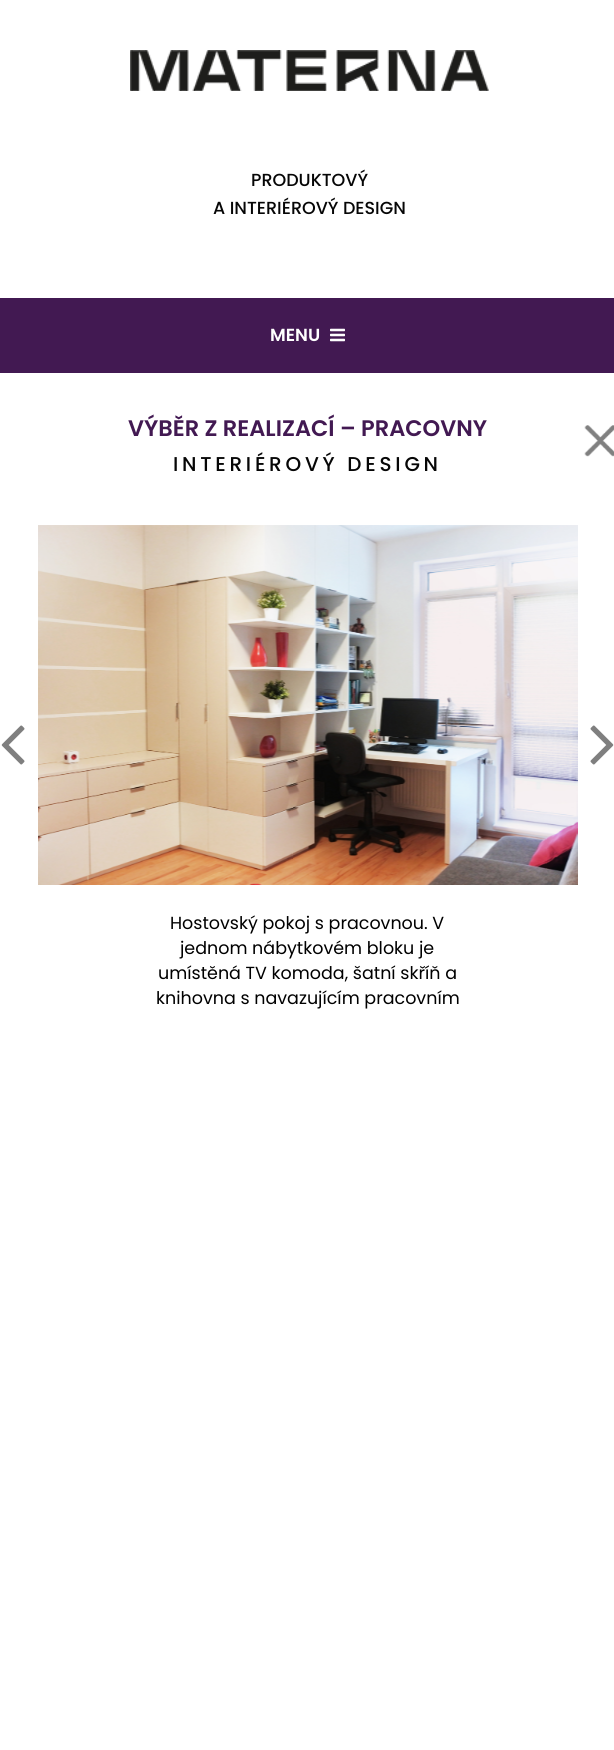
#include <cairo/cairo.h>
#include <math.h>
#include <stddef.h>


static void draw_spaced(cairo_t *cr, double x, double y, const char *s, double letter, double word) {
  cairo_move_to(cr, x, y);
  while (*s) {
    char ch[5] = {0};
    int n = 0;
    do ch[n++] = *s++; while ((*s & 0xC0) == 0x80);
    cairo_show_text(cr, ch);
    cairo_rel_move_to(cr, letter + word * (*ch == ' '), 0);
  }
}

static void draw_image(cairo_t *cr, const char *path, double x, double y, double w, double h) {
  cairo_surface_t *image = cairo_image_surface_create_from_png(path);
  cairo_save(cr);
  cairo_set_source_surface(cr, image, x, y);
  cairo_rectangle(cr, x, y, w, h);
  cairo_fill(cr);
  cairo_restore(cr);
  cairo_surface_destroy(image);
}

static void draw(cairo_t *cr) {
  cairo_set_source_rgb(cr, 1, 1, 1);
  cairo_paint(cr);
  draw_image(cr, "images/1.png", 130, 50, 359, 41);
  cairo_set_source_rgb(cr, 66 / 255.0, 25 / 255.0, 82 / 255.0);
  cairo_rectangle(cr, 0, 298, 614, 75);
  cairo_fill(cr);
  draw_image(cr, "images/2.png", 330, 328, 15, 14);
  draw_image(cr, "images/3.png", 584, 425, 30, 32);
  draw_image(cr, "images/4.png", 1, 725, 24, 40);
  draw_image(cr, "images/5.png", 590, 725, 24, 40);
  draw_image(cr, "images/6.png", 38, 525, 540, 360);
  cairo_select_font_face(cr, "Poppins Medium", CAIRO_FONT_SLANT_NORMAL, CAIRO_FONT_WEIGHT_NORMAL);
  cairo_set_font_size(cr, 17.5);
  cairo_set_source_rgb(cr, 6 / 255.0, 6 / 255.0, 6 / 255.0);
  cairo_move_to(cr, 251, 186);
  cairo_show_text(cr, "PRODUKTOVÝ");
  cairo_move_to(cr, 213, 214);
  cairo_show_text(cr, "A INTERIÉROVÝ DESIGN");
  cairo_select_font_face(cr, "Poppins SemiBold", CAIRO_FONT_SLANT_NORMAL, CAIRO_FONT_WEIGHT_NORMAL);
  cairo_set_source_rgb(cr, 1, 1, 1);
  cairo_move_to(cr, 270, 341);
  cairo_show_text(cr, "MENU");
  cairo_set_font_size(cr, 22.5);
  cairo_set_source_rgb(cr, 66 / 255.0, 25 / 255.0, 82 / 255.0);
  cairo_move_to(cr, 128, 436);
  cairo_show_text(cr, "VÝBĚR Z REALIZACÍ – PRACOVNY");
  cairo_select_font_face(cr, "Poppins Medium", CAIRO_FONT_SLANT_NORMAL, CAIRO_FONT_WEIGHT_NORMAL);
  cairo_set_font_size(cr, 20);
  cairo_set_source_rgb(cr, 6 / 255.0, 6 / 255.0, 6 / 255.0);
  draw_spaced(cr, 173, 471, "INTERIÉROVÝ DESIGN", 3.75, 0);
  cairo_select_font_face(cr, "Poppins", CAIRO_FONT_SLANT_NORMAL, CAIRO_FONT_WEIGHT_NORMAL);
  cairo_set_font_size(cr, 17.5);
  cairo_set_source_rgb(cr, 0, 0, 0);
  cairo_move_to(cr, 170, 929);
  cairo_show_text(cr, "Hostovský pokoj s pracovnou. V");
  cairo_move_to(cr, 180, 954);
  cairo_show_text(cr, "jednom nábytkovém bloku je");
  cairo_move_to(cr, 158, 979);
  cairo_show_text(cr, "umístěná TV komoda, šatní skříň a");
  cairo_move_to(cr, 156, 1004);
  cairo_show_text(cr, "knihovna s navazujícím pracovním");
}

int main(void) {
  cairo_surface_t *surface = cairo_image_surface_create(CAIRO_FORMAT_RGB24, 614, 1750);
  cairo_t *cr = cairo_create(surface);
  cairo_font_options_t *options = cairo_font_options_create();
  cairo_font_options_set_hint_metrics(options, CAIRO_HINT_METRICS_OFF);
  cairo_font_options_set_hint_style(options, CAIRO_HINT_STYLE_NONE);
  cairo_set_font_options(cr, options);
  cairo_set_miter_limit(cr, 4);
  draw(cr);
  cairo_surface_write_to_png(surface, "out.png");
  cairo_font_options_destroy(options);
  cairo_destroy(cr);
  cairo_surface_destroy(surface);
  return 0;
}
